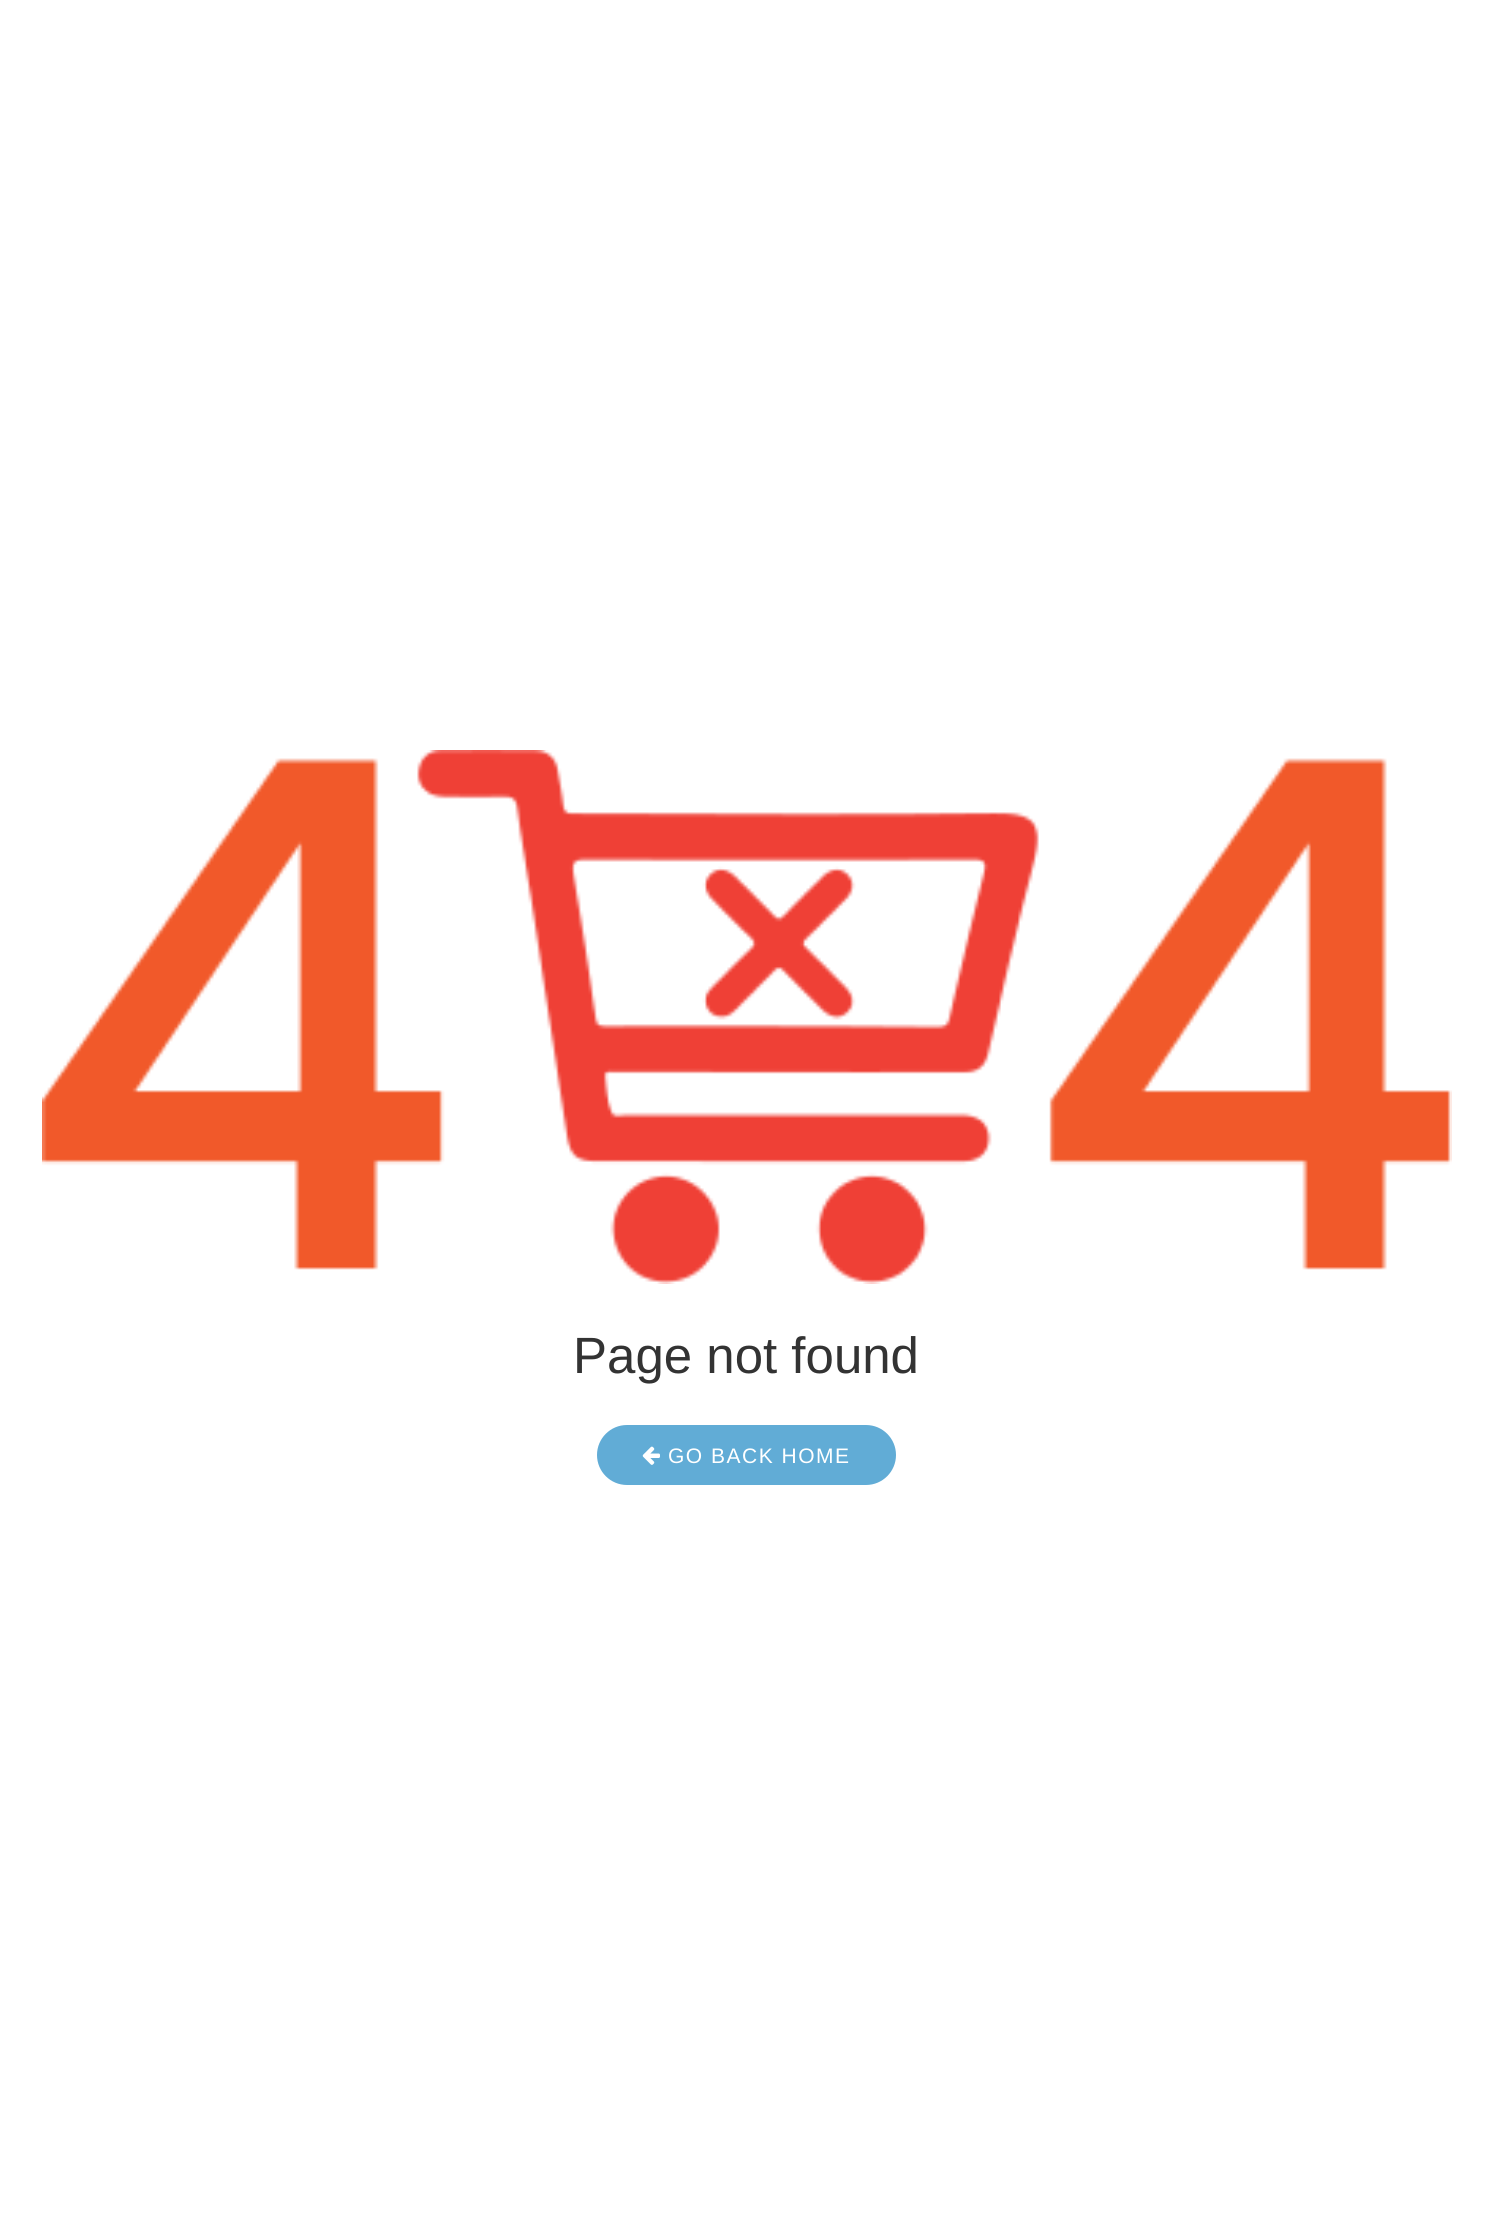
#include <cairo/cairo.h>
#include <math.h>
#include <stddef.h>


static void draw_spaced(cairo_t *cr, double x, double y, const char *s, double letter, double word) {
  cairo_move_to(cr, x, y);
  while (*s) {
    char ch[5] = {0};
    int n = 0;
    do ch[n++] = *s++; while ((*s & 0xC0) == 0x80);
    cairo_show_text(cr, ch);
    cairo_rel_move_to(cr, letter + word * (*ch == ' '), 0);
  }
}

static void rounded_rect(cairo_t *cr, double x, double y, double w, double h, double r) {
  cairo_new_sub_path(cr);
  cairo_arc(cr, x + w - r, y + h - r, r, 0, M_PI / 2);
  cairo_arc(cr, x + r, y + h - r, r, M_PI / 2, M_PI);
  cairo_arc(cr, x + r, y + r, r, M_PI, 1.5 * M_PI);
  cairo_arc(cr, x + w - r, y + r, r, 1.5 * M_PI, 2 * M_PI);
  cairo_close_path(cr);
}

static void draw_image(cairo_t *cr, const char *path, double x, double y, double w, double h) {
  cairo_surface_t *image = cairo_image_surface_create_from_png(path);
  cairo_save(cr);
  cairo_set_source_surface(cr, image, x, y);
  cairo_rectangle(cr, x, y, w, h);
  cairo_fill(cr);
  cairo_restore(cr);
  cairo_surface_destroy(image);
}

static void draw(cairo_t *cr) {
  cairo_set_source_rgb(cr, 1, 1, 1);
  cairo_paint(cr);
  draw_image(cr, "images/1.png", 42, 750, 1410, 534);
  cairo_set_source_rgb(cr, 97 / 255.0, 172 / 255.0, 214 / 255.0);
  rounded_rect(cr, 597, 1425, 299, 60, 30);
  cairo_fill(cr);
  draw_image(cr, "images/2.png", 642, 1446, 18, 19);
  cairo_select_font_face(cr, "Liberation Sans", CAIRO_FONT_SLANT_NORMAL, CAIRO_FONT_WEIGHT_NORMAL);
  cairo_set_font_size(cr, 51);
  cairo_set_source_rgb(cr, 51 / 255.0, 51 / 255.0, 51 / 255.0);
  cairo_move_to(cr, 573, 1373);
  cairo_show_text(cr, "Page not found");
  cairo_set_font_size(cr, 21);
  cairo_set_source_rgb(cr, 1, 1, 1);
  draw_spaced(cr, 668, 1463, "GO BACK HOME", 1.5, 0);
}

int main(void) {
  cairo_surface_t *surface = cairo_image_surface_create(CAIRO_FORMAT_RGB24, 1492, 2234);
  cairo_t *cr = cairo_create(surface);
  cairo_font_options_t *options = cairo_font_options_create();
  cairo_font_options_set_hint_metrics(options, CAIRO_HINT_METRICS_OFF);
  cairo_font_options_set_hint_style(options, CAIRO_HINT_STYLE_NONE);
  cairo_set_font_options(cr, options);
  cairo_set_miter_limit(cr, 4);
  draw(cr);
  cairo_surface_write_to_png(surface, "out.png");
  cairo_font_options_destroy(options);
  cairo_destroy(cr);
  cairo_surface_destroy(surface);
  return 0;
}
